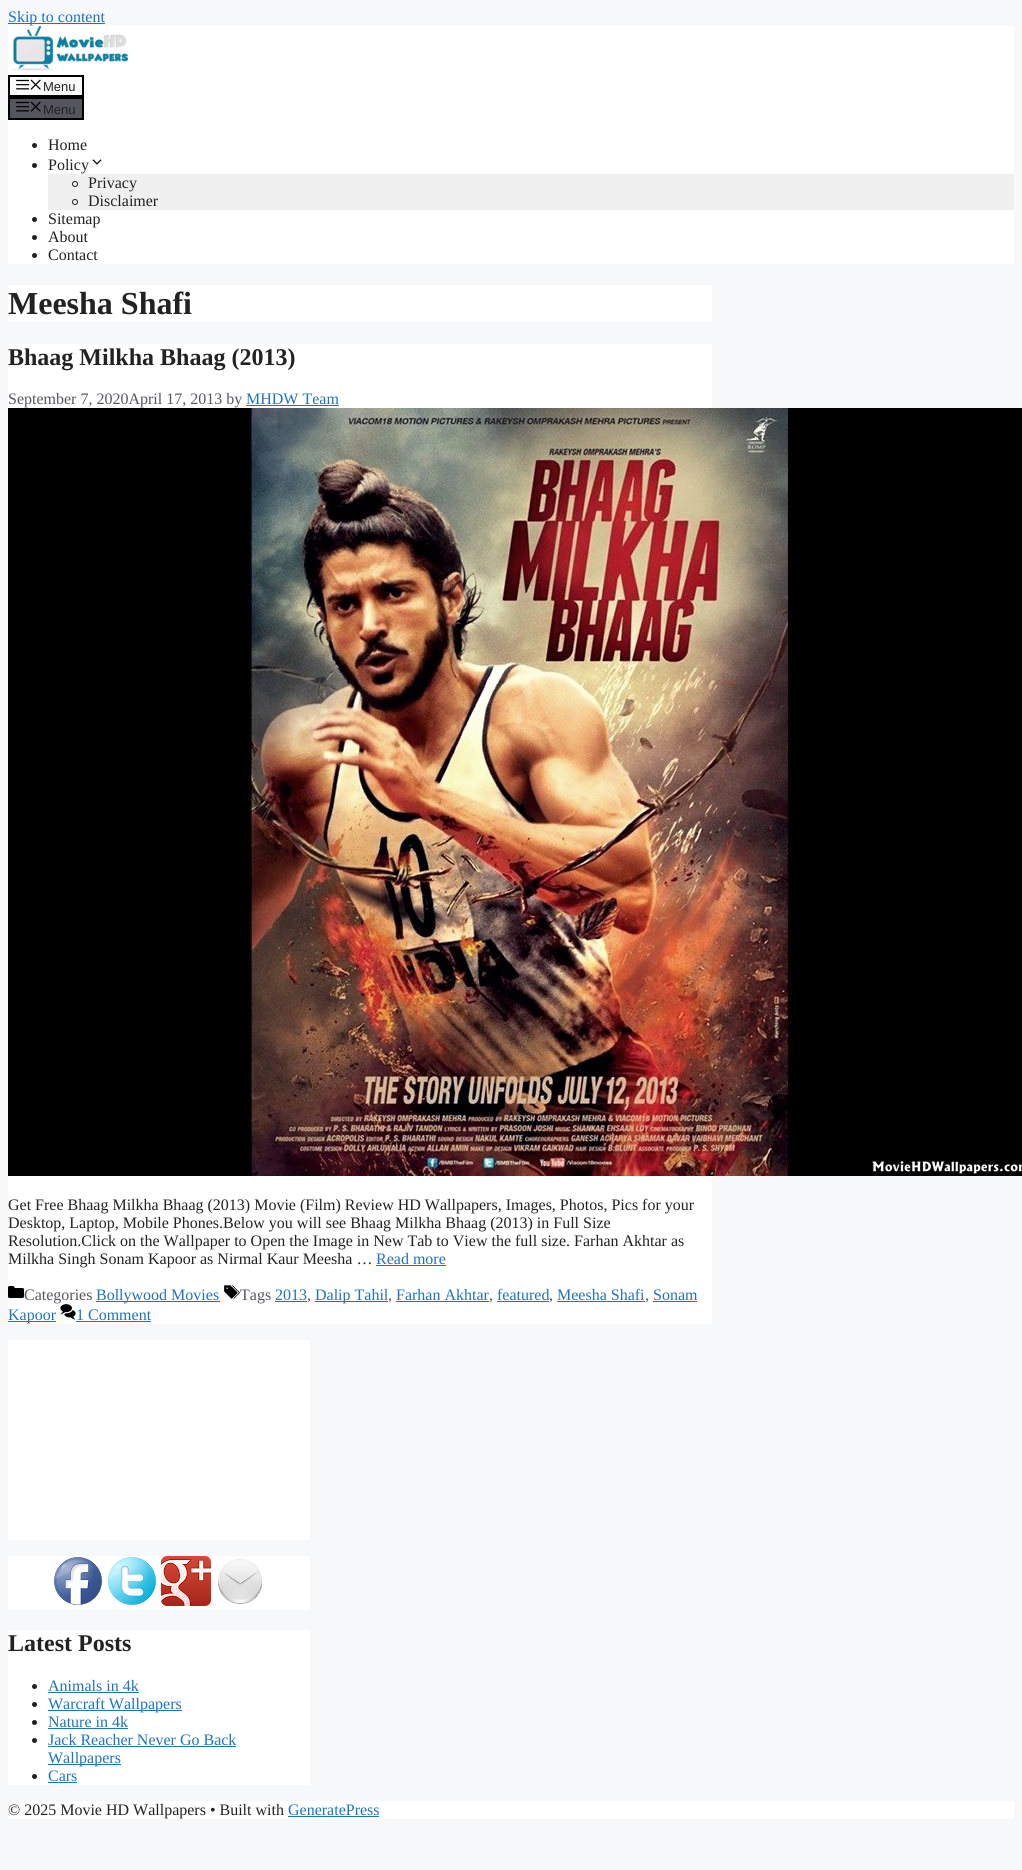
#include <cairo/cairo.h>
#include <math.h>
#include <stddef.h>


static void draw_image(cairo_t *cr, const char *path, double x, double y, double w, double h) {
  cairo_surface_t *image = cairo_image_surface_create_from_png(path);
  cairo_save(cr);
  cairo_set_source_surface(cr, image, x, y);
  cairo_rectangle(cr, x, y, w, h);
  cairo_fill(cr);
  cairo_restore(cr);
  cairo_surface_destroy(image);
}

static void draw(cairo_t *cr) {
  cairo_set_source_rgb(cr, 247 / 255.0, 248 / 255.0, 249 / 255.0);
  cairo_paint(cr);
  cairo_set_source_rgb(cr, 30 / 255.0, 115 / 255.0, 190 / 255.0);
  cairo_rectangle(cr, 8, 23, 97, 1);
  cairo_fill(cr);
  cairo_set_source_rgb(cr, 1, 1, 1);
  cairo_rectangle(cr, 8, 26, 1006, 238);
  cairo_fill(cr);
  draw_image(cr, "images/1.png", 11, 26, 117, 45);
  cairo_set_source_rgb(cr, 250 / 255.0, 250 / 255.0, 250 / 255.0);
  cairo_rectangle(cr, 9, 76, 74, 20);
  cairo_fill_preserve(cr);
  cairo_set_source_rgb(cr, 0, 0, 0);
  cairo_stroke(cr);
  draw_image(cr, "images/2.png", 16, 79, 13, 11);
  draw_image(cr, "images/3.png", 30, 79, 11, 11);
  cairo_set_source_rgb(cr, 85 / 255.0, 85 / 255.0, 94 / 255.0);
  cairo_rectangle(cr, 9, 98, 74, 21);
  cairo_fill_preserve(cr);
  cairo_set_source_rgb(cr, 0, 0, 0);
  cairo_stroke(cr);
  draw_image(cr, "images/4.png", 16, 101, 13, 11);
  draw_image(cr, "images/5.png", 30, 101, 11, 11);
  cairo_set_source_rgb(cr, 34 / 255.0, 34 / 255.0, 34 / 255.0);
  cairo_arc(cr, 34.5, 145.5, 2.5, 0, 2 * M_PI);
  cairo_fill(cr);
  draw_image(cr, "images/6.png", 92, 159, 10, 6);
  cairo_arc(cr, 34.5, 165.5, 2.5, 0, 2 * M_PI);
  cairo_fill(cr);
  cairo_set_source_rgb(cr, 240 / 255.0, 240 / 255.0, 240 / 255.0);
  cairo_rectangle(cr, 48, 174, 966, 36);
  cairo_fill(cr);
  cairo_arc(cr, 75, 184, 2.5, 0, 2 * M_PI);
  cairo_set_source_rgb(cr, 34 / 255.0, 34 / 255.0, 34 / 255.0);
  cairo_set_line_width(cr, 1);
  cairo_stroke(cr);
  cairo_arc(cr, 75, 202, 2.5, 0, 2 * M_PI);
  cairo_stroke(cr);
  cairo_arc(cr, 34.5, 219.5, 2.5, 0, 2 * M_PI);
  cairo_fill(cr);
  cairo_arc(cr, 34.5, 237.5, 2.5, 0, 2 * M_PI);
  cairo_fill(cr);
  cairo_arc(cr, 34.5, 255.5, 2.5, 0, 2 * M_PI);
  cairo_fill(cr);
  cairo_set_source_rgb(cr, 1, 1, 1);
  cairo_rectangle(cr, 8, 285, 704, 37);
  cairo_fill(cr);
  cairo_rectangle(cr, 8, 344, 704, 980);
  cairo_fill(cr);
  cairo_set_source_rgb(cr, 30 / 255.0, 115 / 255.0, 190 / 255.0);
  cairo_rectangle(cr, 246, 405, 93, 1);
  cairo_fill(cr);
  draw_image(cr, "images/7.png", 8, 408, 1014, 768);
  cairo_rectangle(cr, 376, 1265, 70, 1);
  cairo_fill(cr);
  draw_image(cr, "images/8.png", 8, 1286, 16, 12);
  cairo_rectangle(cr, 96, 1301, 124, 1);
  cairo_fill(cr);
  cairo_rectangle(cr, 275, 1301, 32, 1);
  cairo_fill(cr);
  cairo_rectangle(cr, 315, 1301, 73, 1);
  cairo_fill(cr);
  cairo_rectangle(cr, 396, 1301, 93, 1);
  cairo_fill(cr);
  cairo_rectangle(cr, 497, 1301, 52, 1);
  cairo_fill(cr);
  cairo_rectangle(cr, 557, 1301, 88, 1);
  cairo_fill(cr);
  cairo_rectangle(cr, 653, 1301, 44, 1);
  cairo_fill(cr);
  cairo_rectangle(cr, 8, 1321, 48, 1);
  cairo_fill(cr);
  draw_image(cr, "images/10.png", 60, 1304, 16, 16);
  cairo_rectangle(cr, 76, 1321, 75, 1);
  cairo_fill(cr);
  cairo_set_source_rgb(cr, 1, 1, 1);
  cairo_rectangle(cr, 8, 1340, 302, 200);
  cairo_fill(cr);
  cairo_rectangle(cr, 8, 1556, 302, 54);
  cairo_fill(cr);
  draw_image(cr, "images/11.png", 54, 1557, 48, 48);
  draw_image(cr, "images/12.png", 108, 1557, 48, 48);
  draw_image(cr, "images/13.png", 161, 1556, 50, 50);
  draw_image(cr, "images/14.png", 218, 1559, 44, 46);
  cairo_rectangle(cr, 8, 1630, 302, 155);
  cairo_fill(cr);
  cairo_set_source_rgb(cr, 34 / 255.0, 34 / 255.0, 34 / 255.0);
  cairo_arc(cr, 34.5, 1686.5, 2.5, 0, 2 * M_PI);
  cairo_fill(cr);
  cairo_set_source_rgb(cr, 30 / 255.0, 115 / 255.0, 190 / 255.0);
  cairo_rectangle(cr, 48, 1692, 91, 1);
  cairo_fill(cr);
  cairo_set_source_rgb(cr, 34 / 255.0, 34 / 255.0, 34 / 255.0);
  cairo_arc(cr, 34.5, 1704.5, 2.5, 0, 2 * M_PI);
  cairo_fill(cr);
  cairo_set_source_rgb(cr, 30 / 255.0, 115 / 255.0, 190 / 255.0);
  cairo_rectangle(cr, 48, 1710, 134, 1);
  cairo_fill(cr);
  cairo_set_source_rgb(cr, 34 / 255.0, 34 / 255.0, 34 / 255.0);
  cairo_arc(cr, 34.5, 1722.5, 2.5, 0, 2 * M_PI);
  cairo_fill(cr);
  cairo_set_source_rgb(cr, 30 / 255.0, 115 / 255.0, 190 / 255.0);
  cairo_rectangle(cr, 48, 1728, 80, 1);
  cairo_fill(cr);
  cairo_set_source_rgb(cr, 34 / 255.0, 34 / 255.0, 34 / 255.0);
  cairo_arc(cr, 34.5, 1740.5, 2.5, 0, 2 * M_PI);
  cairo_fill(cr);
  cairo_set_source_rgb(cr, 30 / 255.0, 115 / 255.0, 190 / 255.0);
  cairo_rectangle(cr, 48, 1746, 188, 1);
  cairo_fill(cr);
  cairo_rectangle(cr, 48, 1764, 73, 1);
  cairo_fill(cr);
  cairo_set_source_rgb(cr, 34 / 255.0, 34 / 255.0, 34 / 255.0);
  cairo_arc(cr, 34.5, 1776.5, 2.5, 0, 2 * M_PI);
  cairo_fill(cr);
  cairo_set_source_rgb(cr, 30 / 255.0, 115 / 255.0, 190 / 255.0);
  cairo_rectangle(cr, 48, 1782, 29, 1);
  cairo_fill(cr);
  cairo_set_source_rgb(cr, 1, 1, 1);
  cairo_rectangle(cr, 8, 1801, 1006, 18);
  cairo_fill(cr);
  cairo_set_source_rgb(cr, 30 / 255.0, 115 / 255.0, 190 / 255.0);
  cairo_rectangle(cr, 288, 1816, 91, 1);
  cairo_fill(cr);
  cairo_select_font_face(cr, "Liberation Serif", CAIRO_FONT_SLANT_NORMAL, CAIRO_FONT_WEIGHT_NORMAL);
  cairo_set_font_size(cr, 16);
  cairo_move_to(cr, 8, 22);
  cairo_show_text(cr, "Skip to content");
  cairo_select_font_face(cr, "Liberation Sans", CAIRO_FONT_SLANT_NORMAL, CAIRO_FONT_WEIGHT_NORMAL);
  cairo_set_font_size(cr, 13);
  cairo_set_source_rgb(cr, 34 / 255.0, 34 / 255.0, 34 / 255.0);
  cairo_move_to(cr, 43, 91);
  cairo_show_text(cr, "Menu");
  cairo_move_to(cr, 43, 114);
  cairo_show_text(cr, "Menu");
  cairo_select_font_face(cr, "Liberation Serif", CAIRO_FONT_SLANT_NORMAL, CAIRO_FONT_WEIGHT_NORMAL);
  cairo_set_font_size(cr, 16);
  cairo_move_to(cr, 48, 150);
  cairo_show_text(cr, "Home");
  cairo_move_to(cr, 48, 170);
  cairo_show_text(cr, "Policy");
  cairo_move_to(cr, 88, 188);
  cairo_show_text(cr, "Privacy");
  cairo_move_to(cr, 88, 206);
  cairo_show_text(cr, "Disclaimer");
  cairo_move_to(cr, 48, 224);
  cairo_show_text(cr, "Sitemap");
  cairo_move_to(cr, 48, 242);
  cairo_show_text(cr, "About");
  cairo_move_to(cr, 48, 260);
  cairo_show_text(cr, "Contact");
  cairo_select_font_face(cr, "Liberation Serif", CAIRO_FONT_SLANT_NORMAL, CAIRO_FONT_WEIGHT_BOLD);
  cairo_set_font_size(cr, 32);
  cairo_move_to(cr, 8, 314);
  cairo_show_text(cr, "Meesha Shafi");
  cairo_set_font_size(cr, 24);
  cairo_move_to(cr, 8, 365);
  cairo_show_text(cr, "Bhaag Milkha Bhaag (2013)");
  cairo_select_font_face(cr, "Liberation Serif", CAIRO_FONT_SLANT_NORMAL, CAIRO_FONT_WEIGHT_NORMAL);
  cairo_set_font_size(cr, 16);
  cairo_set_source_rgb(cr, 87 / 255.0, 87 / 255.0, 96 / 255.0);
  cairo_move_to(cr, 8, 404);
  cairo_show_text(cr, "September 7, 2020April 17, 2013 by");
  cairo_set_source_rgb(cr, 30 / 255.0, 115 / 255.0, 190 / 255.0);
  cairo_move_to(cr, 246, 404);
  cairo_show_text(cr, "MHDW Team");
  cairo_set_source_rgb(cr, 34 / 255.0, 34 / 255.0, 34 / 255.0);
  cairo_move_to(cr, 8, 1210);
  cairo_show_text(cr, "Get Free Bhaag Milkha Bhaag (2013) Movie (Film) Review HD Wallpapers, Images, Photos, Pics for your");
  cairo_move_to(cr, 8, 1228);
  cairo_show_text(cr, "Desktop, Laptop, Mobile Phones.Below you will see Bhaag Milkha Bhaag (2013) in Full Size");
  cairo_move_to(cr, 8, 1246);
  cairo_show_text(cr, "Resolution.Click on the Wallpaper to Open the Image in New Tab to View the full size. Farhan Akhtar as");
  cairo_move_to(cr, 8, 1264);
  cairo_show_text(cr, "Milkha Singh Sonam Kapoor as Nirmal Kaur Meesha …");
  cairo_set_source_rgb(cr, 30 / 255.0, 115 / 255.0, 190 / 255.0);
  cairo_move_to(cr, 376, 1264);
  cairo_show_text(cr, "Read more");
  cairo_set_source_rgb(cr, 87 / 255.0, 87 / 255.0, 96 / 255.0);
  cairo_move_to(cr, 24, 1300);
  cairo_show_text(cr, "Categories");
  cairo_set_source_rgb(cr, 30 / 255.0, 115 / 255.0, 190 / 255.0);
  cairo_move_to(cr, 96, 1300);
  cairo_show_text(cr, "Bollywood Movies");
  cairo_set_source_rgb(cr, 87 / 255.0, 87 / 255.0, 96 / 255.0);
  cairo_move_to(cr, 240, 1300);
  cairo_show_text(cr, "Tags");
  draw_image(cr, "images/9.png", 224, 1285, 16, 14);
  cairo_set_source_rgb(cr, 30 / 255.0, 115 / 255.0, 190 / 255.0);
  cairo_move_to(cr, 275, 1300);
  cairo_show_text(cr, "2013");
  cairo_set_source_rgb(cr, 87 / 255.0, 87 / 255.0, 96 / 255.0);
  cairo_move_to(cr, 307, 1300);
  cairo_show_text(cr, ",");
  cairo_set_source_rgb(cr, 30 / 255.0, 115 / 255.0, 190 / 255.0);
  cairo_move_to(cr, 315, 1300);
  cairo_show_text(cr, "Dalip Tahil");
  cairo_set_source_rgb(cr, 87 / 255.0, 87 / 255.0, 96 / 255.0);
  cairo_move_to(cr, 388, 1300);
  cairo_show_text(cr, ",");
  cairo_set_source_rgb(cr, 30 / 255.0, 115 / 255.0, 190 / 255.0);
  cairo_move_to(cr, 396, 1300);
  cairo_show_text(cr, "Farhan Akhtar");
  cairo_set_source_rgb(cr, 87 / 255.0, 87 / 255.0, 96 / 255.0);
  cairo_move_to(cr, 489, 1300);
  cairo_show_text(cr, ",");
  cairo_set_source_rgb(cr, 30 / 255.0, 115 / 255.0, 190 / 255.0);
  cairo_move_to(cr, 497, 1300);
  cairo_show_text(cr, "featured");
  cairo_set_source_rgb(cr, 87 / 255.0, 87 / 255.0, 96 / 255.0);
  cairo_move_to(cr, 549, 1300);
  cairo_show_text(cr, ",");
  cairo_set_source_rgb(cr, 30 / 255.0, 115 / 255.0, 190 / 255.0);
  cairo_move_to(cr, 557, 1300);
  cairo_show_text(cr, "Meesha Shafi");
  cairo_set_source_rgb(cr, 87 / 255.0, 87 / 255.0, 96 / 255.0);
  cairo_move_to(cr, 645, 1300);
  cairo_show_text(cr, ",");
  cairo_set_source_rgb(cr, 30 / 255.0, 115 / 255.0, 190 / 255.0);
  cairo_move_to(cr, 653, 1300);
  cairo_show_text(cr, "Sonam");
  cairo_move_to(cr, 8, 1320);
  cairo_show_text(cr, "Kapoor");
  cairo_move_to(cr, 76, 1320);
  cairo_show_text(cr, "1 Comment");
  cairo_select_font_face(cr, "Liberation Serif", CAIRO_FONT_SLANT_NORMAL, CAIRO_FONT_WEIGHT_BOLD);
  cairo_set_font_size(cr, 24);
  cairo_set_source_rgb(cr, 34 / 255.0, 34 / 255.0, 34 / 255.0);
  cairo_move_to(cr, 8, 1651);
  cairo_show_text(cr, "Latest Posts");
  cairo_select_font_face(cr, "Liberation Serif", CAIRO_FONT_SLANT_NORMAL, CAIRO_FONT_WEIGHT_NORMAL);
  cairo_set_font_size(cr, 16);
  cairo_set_source_rgb(cr, 30 / 255.0, 115 / 255.0, 190 / 255.0);
  cairo_move_to(cr, 48, 1691);
  cairo_show_text(cr, "Animals in 4k");
  cairo_move_to(cr, 48, 1709);
  cairo_show_text(cr, "Warcraft Wallpapers");
  cairo_move_to(cr, 48, 1727);
  cairo_show_text(cr, "Nature in 4k");
  cairo_move_to(cr, 48, 1745);
  cairo_show_text(cr, "Jack Reacher Never Go Back");
  cairo_move_to(cr, 48, 1763);
  cairo_show_text(cr, "Wallpapers");
  cairo_move_to(cr, 48, 1781);
  cairo_show_text(cr, "Cars");
  cairo_set_source_rgb(cr, 34 / 255.0, 34 / 255.0, 34 / 255.0);
  cairo_move_to(cr, 8, 1815);
  cairo_show_text(cr, "© 2025 Movie HD Wallpapers • Built with");
  cairo_set_source_rgb(cr, 30 / 255.0, 115 / 255.0, 190 / 255.0);
  cairo_move_to(cr, 288, 1815);
  cairo_show_text(cr, "GeneratePress");
}

int main(void) {
  cairo_surface_t *surface = cairo_image_surface_create(CAIRO_FORMAT_RGB24, 1022, 1870);
  cairo_t *cr = cairo_create(surface);
  cairo_font_options_t *options = cairo_font_options_create();
  cairo_font_options_set_hint_metrics(options, CAIRO_HINT_METRICS_OFF);
  cairo_font_options_set_hint_style(options, CAIRO_HINT_STYLE_NONE);
  cairo_set_font_options(cr, options);
  cairo_set_miter_limit(cr, 4);
  draw(cr);
  cairo_surface_write_to_png(surface, "out.png");
  cairo_font_options_destroy(options);
  cairo_destroy(cr);
  cairo_surface_destroy(surface);
  return 0;
}
